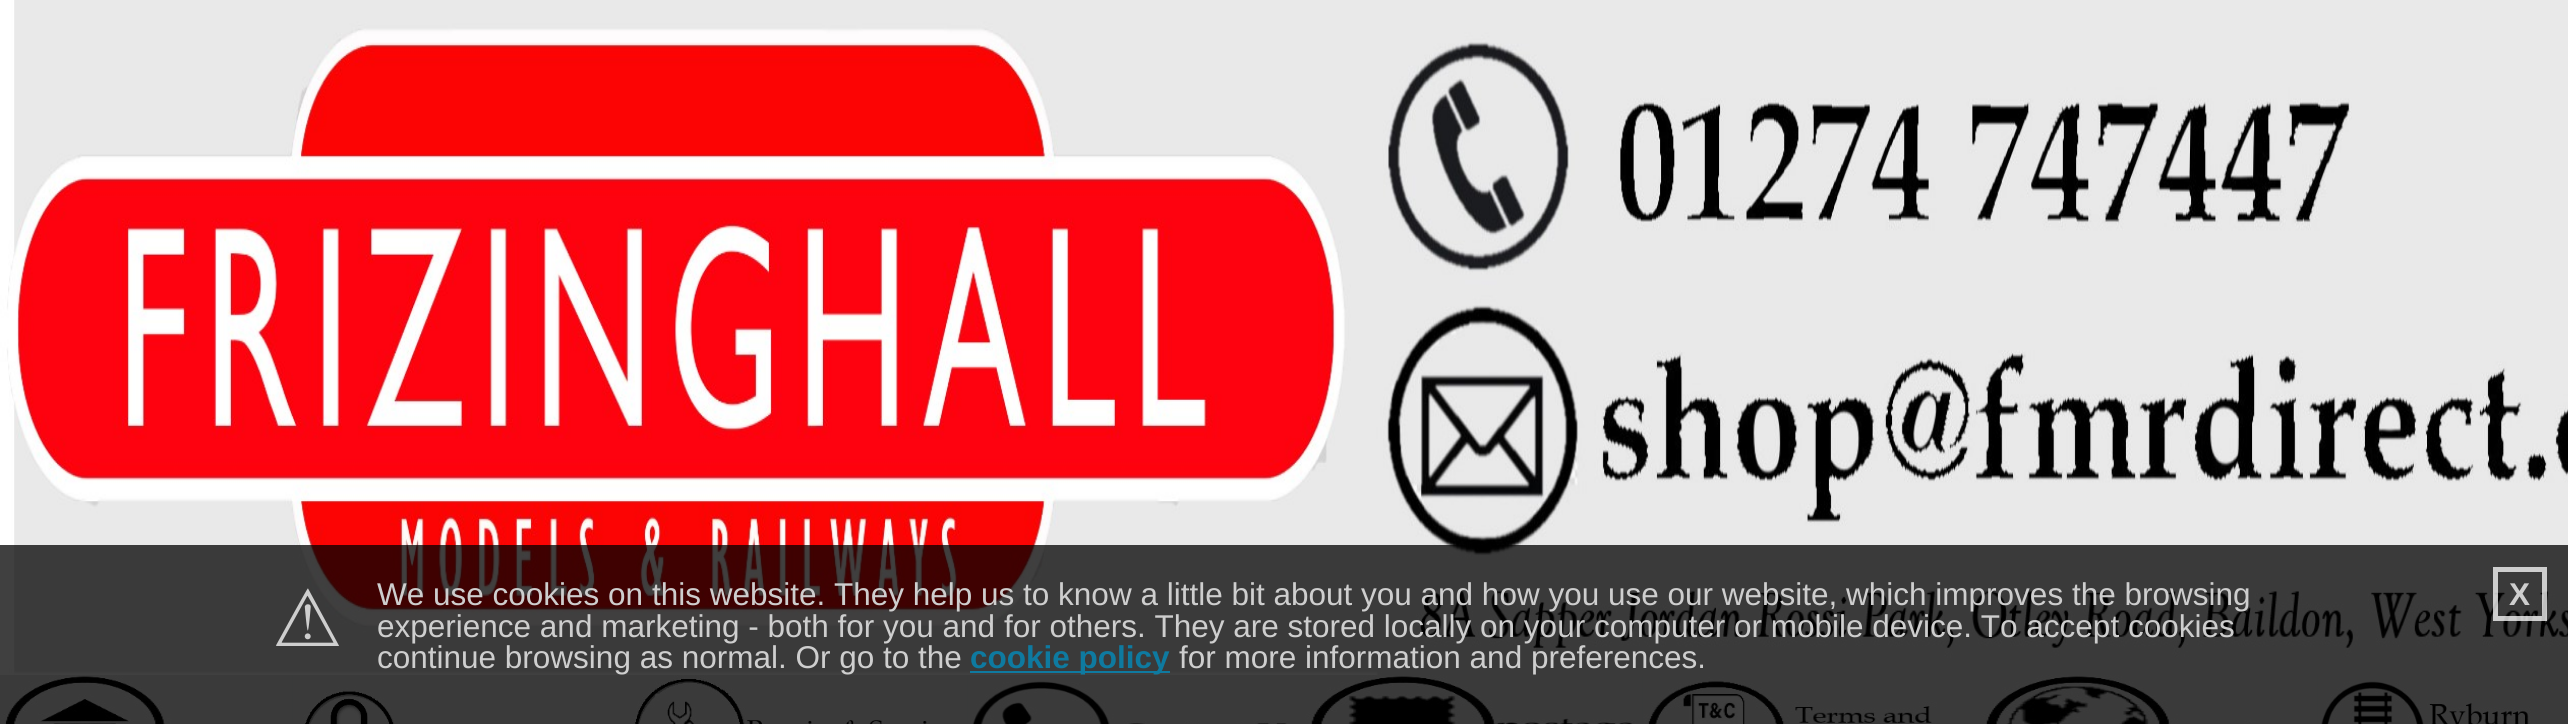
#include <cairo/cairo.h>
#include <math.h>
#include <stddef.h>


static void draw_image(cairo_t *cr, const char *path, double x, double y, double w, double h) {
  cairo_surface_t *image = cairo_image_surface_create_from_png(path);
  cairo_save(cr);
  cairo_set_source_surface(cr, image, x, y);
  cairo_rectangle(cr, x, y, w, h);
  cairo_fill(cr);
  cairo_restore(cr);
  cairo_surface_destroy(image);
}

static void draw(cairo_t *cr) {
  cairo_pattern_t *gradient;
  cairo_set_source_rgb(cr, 1, 1, 1);
  cairo_paint(cr);
  gradient = cairo_pattern_create_linear(1285, 0, 1285, 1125);
  cairo_pattern_add_color_stop_rgba(gradient, 0, 245 / 255.0, 245 / 255.0, 245 / 255.0, 1);
  cairo_pattern_add_color_stop_rgba(gradient, 1, 210 / 255.0, 215 / 255.0, 215 / 255.0, 1);
  cairo_set_source(cr, gradient);
  cairo_pattern_destroy(gradient);
  cairo_rectangle(cr, 292, 675, 2026, 49);
  cairo_fill(cr);
  draw_image(cr, "images/1.png", 0, 0, 2568, 675);
  draw_image(cr, "images/2.png", 0, 675, 293, 49);
  draw_image(cr, "images/3.png", 293, 675, 337, 49);
  draw_image(cr, "images/4.png", 630, 675, 338, 49);
  draw_image(cr, "images/5.png", 968, 675, 337, 49);
  draw_image(cr, "images/6.png", 1305, 675, 338, 49);
  draw_image(cr, "images/7.png", 1643, 675, 337, 49);
  draw_image(cr, "images/8.png", 1980, 675, 338, 49);
  draw_image(cr, "images/9.png", 2318, 675, 250, 49);
  cairo_set_source_rgba(cr, 0, 0, 0, 0.75);
  cairo_rectangle(cr, 0, 545, 2568, 179);
  cairo_fill(cr);
  cairo_set_source_rgb(cr, 15 / 255.0, 122 / 255.0, 160 / 255.0);
  cairo_rectangle(cr, 970, 671, 200, 2);
  cairo_fill(cr);
  cairo_rectangle(cr, 2495.5, 569.5, 49, 49);
  cairo_set_source_rgba(cr, 1, 1, 1, 0.75);
  cairo_set_line_width(cr, 5);
  cairo_stroke(cr);
  cairo_select_font_face(cr, "DejaVu Sans", CAIRO_FONT_SLANT_NORMAL, CAIRO_FONT_WEIGHT_NORMAL);
  cairo_set_font_size(cr, 79);
  cairo_set_source_rgb(cr, 206 / 255.0, 206 / 255.0, 206 / 255.0);
  cairo_move_to(cr, 272, 646);
  cairo_show_text(cr, "⚠");
  cairo_select_font_face(cr, "Liberation Sans", CAIRO_FONT_SLANT_NORMAL, CAIRO_FONT_WEIGHT_NORMAL);
  cairo_set_font_size(cr, 31.5);
  cairo_move_to(cr, 377, 605);
  cairo_show_text(cr, "We use cookies on this website. They help us to know a little bit about you and how you use our website, which improves the browsing");
  cairo_move_to(cr, 377, 637);
  cairo_show_text(cr, "experience and marketing - both for you and for others. They are stored locally on your computer or mobile device. To accept cookies");
  cairo_move_to(cr, 377, 668);
  cairo_show_text(cr, "continue browsing as normal. Or go to the");
  cairo_select_font_face(cr, "Liberation Sans", CAIRO_FONT_SLANT_NORMAL, CAIRO_FONT_WEIGHT_BOLD);
  cairo_set_source_rgb(cr, 14 / 255.0, 122 / 255.0, 160 / 255.0);
  cairo_move_to(cr, 970, 668);
  cairo_show_text(cr, "cookie policy");
  cairo_select_font_face(cr, "Liberation Sans", CAIRO_FONT_SLANT_NORMAL, CAIRO_FONT_WEIGHT_NORMAL);
  cairo_set_source_rgb(cr, 206 / 255.0, 206 / 255.0, 206 / 255.0);
  cairo_move_to(cr, 1179, 668);
  cairo_show_text(cr, "for more information and preferences.");
  cairo_select_font_face(cr, "Liberation Sans", CAIRO_FONT_SLANT_NORMAL, CAIRO_FONT_WEIGHT_BOLD);
  cairo_move_to(cr, 2509, 605);
  cairo_show_text(cr, "X");
}

int main(void) {
  cairo_surface_t *surface = cairo_image_surface_create(CAIRO_FORMAT_RGB24, 2568, 724);
  cairo_t *cr = cairo_create(surface);
  cairo_font_options_t *options = cairo_font_options_create();
  cairo_font_options_set_hint_metrics(options, CAIRO_HINT_METRICS_OFF);
  cairo_font_options_set_hint_style(options, CAIRO_HINT_STYLE_NONE);
  cairo_set_font_options(cr, options);
  cairo_set_miter_limit(cr, 4);
  draw(cr);
  cairo_surface_write_to_png(surface, "out.png");
  cairo_font_options_destroy(options);
  cairo_destroy(cr);
  cairo_surface_destroy(surface);
  return 0;
}
